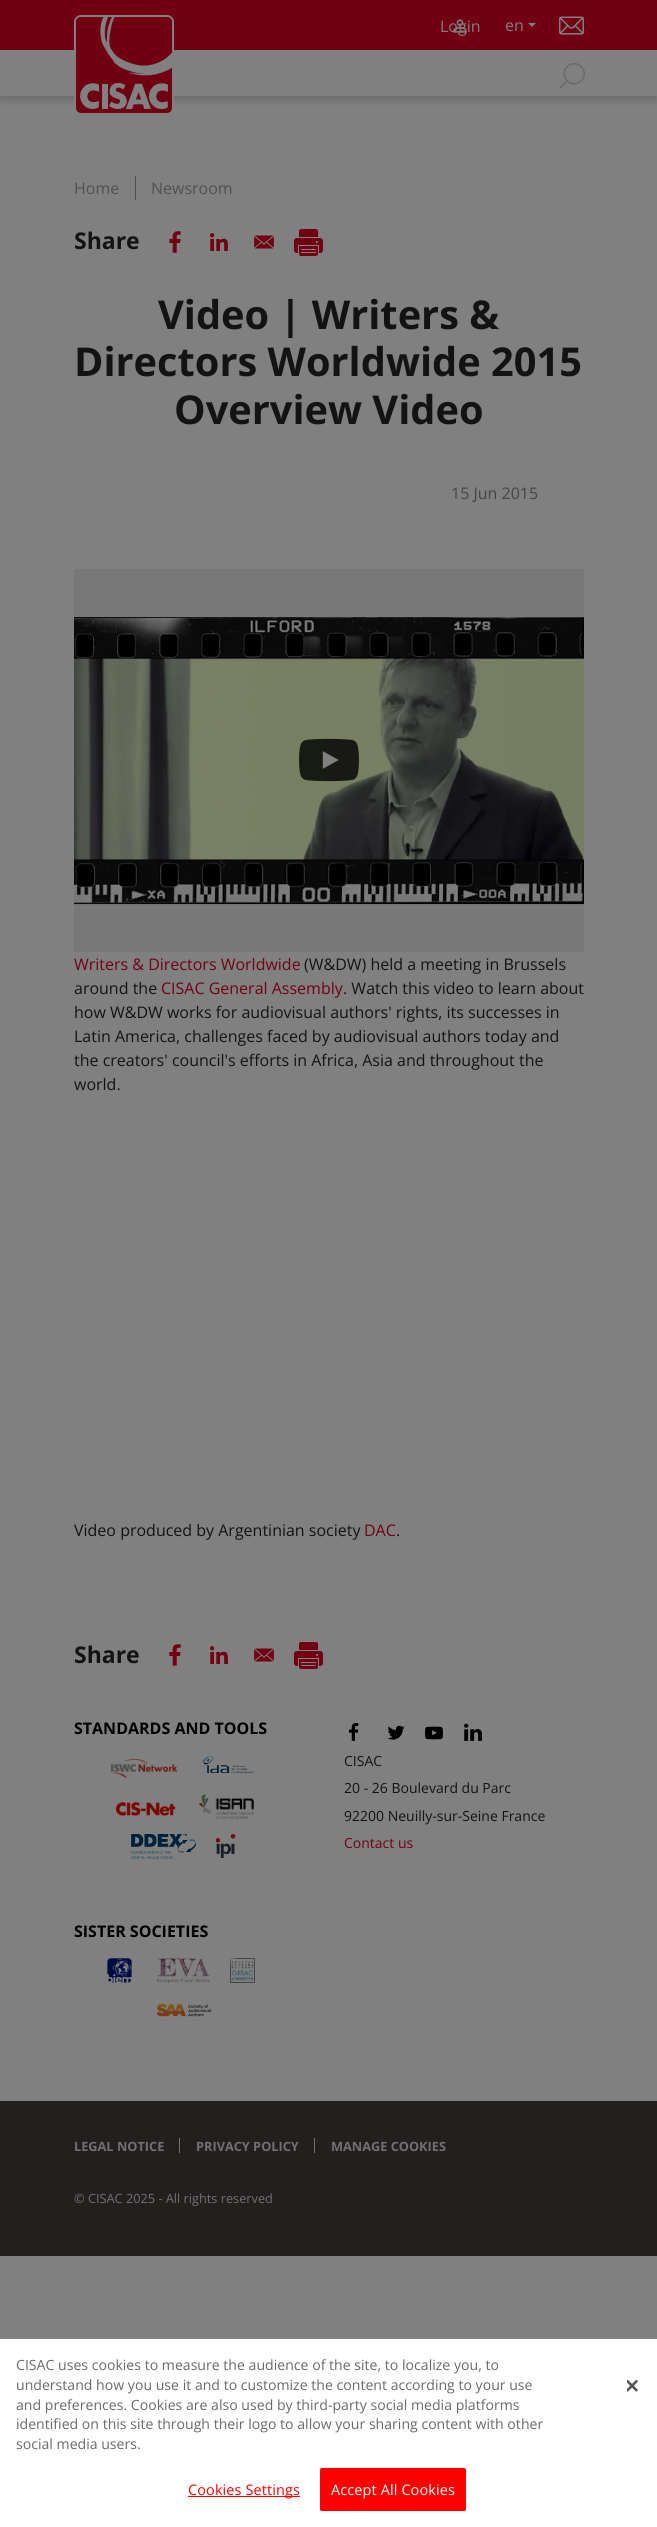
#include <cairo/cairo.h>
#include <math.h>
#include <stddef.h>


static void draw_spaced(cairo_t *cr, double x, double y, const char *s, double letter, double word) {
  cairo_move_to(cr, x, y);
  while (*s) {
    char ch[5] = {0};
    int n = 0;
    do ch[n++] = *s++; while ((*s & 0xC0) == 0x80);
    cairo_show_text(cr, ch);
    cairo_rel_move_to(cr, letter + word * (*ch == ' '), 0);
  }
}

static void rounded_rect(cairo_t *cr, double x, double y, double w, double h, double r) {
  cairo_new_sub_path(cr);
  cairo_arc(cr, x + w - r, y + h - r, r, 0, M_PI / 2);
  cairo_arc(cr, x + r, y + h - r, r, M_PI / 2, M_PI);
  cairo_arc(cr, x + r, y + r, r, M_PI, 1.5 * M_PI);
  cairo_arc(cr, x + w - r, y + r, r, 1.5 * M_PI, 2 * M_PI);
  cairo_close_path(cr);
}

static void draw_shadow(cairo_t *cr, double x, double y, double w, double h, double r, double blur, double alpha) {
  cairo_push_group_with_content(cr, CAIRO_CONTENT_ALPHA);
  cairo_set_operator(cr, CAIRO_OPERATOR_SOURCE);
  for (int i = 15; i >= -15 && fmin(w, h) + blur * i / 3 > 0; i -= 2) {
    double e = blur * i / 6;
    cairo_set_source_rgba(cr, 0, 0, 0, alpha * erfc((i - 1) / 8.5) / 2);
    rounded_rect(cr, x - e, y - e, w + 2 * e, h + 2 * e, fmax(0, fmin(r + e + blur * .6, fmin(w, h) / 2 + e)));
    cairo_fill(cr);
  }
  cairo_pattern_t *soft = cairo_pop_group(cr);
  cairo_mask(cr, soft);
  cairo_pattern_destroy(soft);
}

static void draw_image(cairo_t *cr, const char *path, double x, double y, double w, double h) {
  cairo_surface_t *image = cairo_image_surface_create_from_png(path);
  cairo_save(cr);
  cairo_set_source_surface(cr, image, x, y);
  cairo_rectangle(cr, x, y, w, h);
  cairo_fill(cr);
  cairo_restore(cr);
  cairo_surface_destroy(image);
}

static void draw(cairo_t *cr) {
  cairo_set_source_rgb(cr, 128 / 255.0, 128 / 255.0, 128 / 255.0);
  cairo_paint(cr);
  cairo_save(cr);
  cairo_rectangle(cr, 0, 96, 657, 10);
  cairo_clip(cr);
  cairo_set_source_rgb(cr, 20 / 255.0, 19 / 255.0, 19 / 255.0);
  draw_shadow(cr, 0, 54, 657, 46, 0, 5, 0.2);
  cairo_restore(cr);
  cairo_set_source_rgb(cr, 113 / 255.0, 0, 19 / 255.0);
  cairo_rectangle(cr, 0, 0, 657, 50);
  cairo_fill(cr);
  rounded_rect(cr, 75, 16, 98, 98, 6);
  cairo_set_source_rgb(cr, 128 / 255.0, 128 / 255.0, 128 / 255.0);
  cairo_stroke(cr);
  draw_image(cr, "images/1.png", 76, 17, 96, 96);
  cairo_new_path(cr);
  cairo_move_to(cr, 528, 23);
  cairo_line_to(cr, 536, 23);
  cairo_line_to(cr, 532, 27);
  cairo_close_path(cr);
  cairo_fill(cr);
  draw_image(cr, "images/3.png", 559, 16, 25, 19);
  draw_image(cr, "images/4.png", 560, 63, 25, 25);
  cairo_set_source_rgb(cr, 82 / 255.0, 80 / 255.0, 80 / 255.0);
  cairo_rectangle(cr, 135, 176, 1, 24);
  cairo_fill(cr);
  draw_image(cr, "images/5.png", 169, 231, 12, 22);
  draw_image(cr, "images/6.png", 210, 233, 18, 18);
  draw_image(cr, "images/7.png", 254, 235, 20, 14);
  draw_image(cr, "images/8.png", 294, 229, 29, 27);
  cairo_set_source_rgb(cr, 120 / 255.0, 120 / 255.0, 120 / 255.0);
  cairo_rectangle(cr, 74, 569, 510, 383);
  cairo_fill(cr);
  draw_image(cr, "images/9.png", 74, 617, 510, 288);
  draw_image(cr, "images/10.png", 299, 738, 60, 44);
  draw_image(cr, "images/5.png", 169, 1644, 12, 22);
  draw_image(cr, "images/6.png", 210, 1646, 18, 18);
  draw_image(cr, "images/7.png", 254, 1648, 20, 14);
  draw_image(cr, "images/8.png", 294, 1642, 29, 27);
  draw_image(cr, "images/11.png", 111, 1759, 66, 19);
  draw_image(cr, "images/12.png", 202, 1756, 52, 17);
  draw_image(cr, "images/13.png", 115, 1802, 61, 14);
  draw_image(cr, "images/14.png", 199, 1794, 55, 25);
  draw_image(cr, "images/15.png", 131, 1834, 65, 25);
  draw_image(cr, "images/16.png", 216, 1834, 20, 24);
  draw_image(cr, "images/17.png", 349, 1723, 10, 18);
  draw_image(cr, "images/18.png", 387, 1725, 18, 15);
  draw_image(cr, "images/19.png", 425, 1726, 18, 14);
  draw_image(cr, "images/20.png", 464, 1723, 18, 18);
  draw_image(cr, "images/21.png", 107, 1958, 25, 25);
  draw_image(cr, "images/22.png", 157, 1958, 53, 25);
  draw_image(cr, "images/23.png", 230, 1958, 25, 25);
  draw_image(cr, "images/24.png", 156, 2003, 56, 14);
  cairo_set_source_rgb(cr, 35 / 255.0, 31 / 255.0, 31 / 255.0);
  cairo_rectangle(cr, 0, 2101, 657, 155);
  cairo_fill(cr);
  cairo_set_source_rgb(cr, 113 / 255.0, 112 / 255.0, 112 / 255.0);
  cairo_rectangle(cr, 179, 2138, 1, 15);
  cairo_fill(cr);
  cairo_rectangle(cr, 314, 2138, 1, 15);
  cairo_fill(cr);
  cairo_set_source_rgb(cr, 1, 1, 1);
  cairo_rectangle(cr, 0, 2339, 657, 188);
  cairo_fill(cr);
  draw_image(cr, "images/25.png", 627, 2380, 11, 12);
  cairo_set_source_rgb(cr, 1, 0, 0);
  cairo_rectangle(cr, 188, 2496, 112, 1);
  cairo_fill(cr);
  rounded_rect(cr, 320.5, 2468.5, 145, 42, 1.5);
  cairo_fill_preserve(cr);
  cairo_set_line_width(cr, 1);
  cairo_stroke(cr);
  cairo_select_font_face(cr, "Open Sans", CAIRO_FONT_SLANT_NORMAL, CAIRO_FONT_WEIGHT_NORMAL);
  cairo_set_font_size(cr, 16);
  cairo_set_source_rgb(cr, 128 / 255.0, 128 / 255.0, 128 / 255.0);
  cairo_move_to(cr, 440, 32);
  cairo_show_text(cr, "Login");
  draw_image(cr, "images/2.png", 453, 19, 14, 14);
  cairo_move_to(cr, 505, 31);
  cairo_show_text(cr, "en");
  cairo_set_source_rgb(cr, 82 / 255.0, 80 / 255.0, 80 / 255.0);
  cairo_move_to(cr, 74, 194);
  cairo_show_text(cr, "Home");
  cairo_move_to(cr, 151, 194);
  cairo_show_text(cr, "Newsroom");
  cairo_select_font_face(cr, "Open Sans", CAIRO_FONT_SLANT_NORMAL, CAIRO_FONT_WEIGHT_BOLD);
  cairo_set_font_size(cr, 23);
  cairo_set_source_rgb(cr, 20 / 255.0, 19 / 255.0, 19 / 255.0);
  cairo_move_to(cr, 74, 249);
  cairo_show_text(cr, "Share");
  cairo_set_font_size(cr, 39.75);
  cairo_move_to(cr, 158, 329);
  cairo_show_text(cr, "Video | Writers &");
  cairo_move_to(cr, 74, 376);
  cairo_show_text(cr, "Directors Worldwide 2015");
  cairo_move_to(cr, 174, 424);
  cairo_show_text(cr, "Overview Video");
  cairo_select_font_face(cr, "Open Sans", CAIRO_FONT_SLANT_NORMAL, CAIRO_FONT_WEIGHT_NORMAL);
  cairo_set_font_size(cr, 16);
  cairo_set_source_rgb(cr, 71 / 255.0, 68 / 255.0, 68 / 255.0);
  cairo_move_to(cr, 451, 499);
  cairo_show_text(cr, "15 Jun 2015");
  cairo_set_source_rgb(cr, 113 / 255.0, 0, 19 / 255.0);
  cairo_move_to(cr, 74, 970);
  cairo_show_text(cr, "Writers & Directors Worldwide");
  cairo_set_source_rgb(cr, 20 / 255.0, 19 / 255.0, 19 / 255.0);
  cairo_move_to(cr, 304, 970);
  cairo_show_text(cr, "(W&DW) held a meeting in Brussels");
  cairo_move_to(cr, 74, 994);
  cairo_show_text(cr, "around the");
  cairo_set_source_rgb(cr, 113 / 255.0, 0, 19 / 255.0);
  cairo_move_to(cr, 161, 994);
  cairo_show_text(cr, "CISAC General Assembly");
  cairo_set_source_rgb(cr, 20 / 255.0, 19 / 255.0, 19 / 255.0);
  cairo_move_to(cr, 343, 994);
  cairo_show_text(cr, ". Watch this video to learn about");
  cairo_move_to(cr, 74, 1018);
  cairo_show_text(cr, "how W&DW works for audiovisual authors' rights, its successes in");
  cairo_move_to(cr, 74, 1042);
  cairo_show_text(cr, "Latin America, challenges faced by audiovisual authors today and");
  cairo_move_to(cr, 74, 1066);
  cairo_show_text(cr, "the creators' council's efforts in Africa, Asia and throughout the");
  cairo_move_to(cr, 74, 1090);
  cairo_show_text(cr, "world.");
  cairo_move_to(cr, 74, 1536);
  cairo_show_text(cr, "Video produced by Argentinian society");
  cairo_set_source_rgb(cr, 113 / 255.0, 0, 19 / 255.0);
  cairo_move_to(cr, 364, 1536);
  cairo_show_text(cr, "DAC");
  cairo_set_source_rgb(cr, 20 / 255.0, 19 / 255.0, 19 / 255.0);
  cairo_move_to(cr, 396, 1536);
  cairo_show_text(cr, ".");
  cairo_select_font_face(cr, "Open Sans", CAIRO_FONT_SLANT_NORMAL, CAIRO_FONT_WEIGHT_BOLD);
  cairo_set_font_size(cr, 23);
  cairo_move_to(cr, 74, 1663);
  cairo_show_text(cr, "Share");
  cairo_set_font_size(cr, 16);
  cairo_set_source_rgb(cr, 0, 0, 0);
  cairo_move_to(cr, 74, 1734);
  cairo_show_text(cr, "STANDARDS AND TOOLS");
  cairo_select_font_face(cr, "Open Sans", CAIRO_FONT_SLANT_NORMAL, CAIRO_FONT_WEIGHT_NORMAL);
  cairo_set_font_size(cr, 14);
  cairo_set_source_rgb(cr, 20 / 255.0, 19 / 255.0, 19 / 255.0);
  cairo_move_to(cr, 344, 1766);
  cairo_show_text(cr, "CISAC");
  cairo_move_to(cr, 344, 1793);
  cairo_show_text(cr, "20 - 26 Boulevard du Parc");
  cairo_move_to(cr, 344, 1821);
  cairo_show_text(cr, "92200 Neuilly-sur-Seine France");
  cairo_set_source_rgb(cr, 113 / 255.0, 0, 19 / 255.0);
  cairo_move_to(cr, 344, 1848);
  cairo_show_text(cr, "Contact us");
  cairo_select_font_face(cr, "Open Sans", CAIRO_FONT_SLANT_NORMAL, CAIRO_FONT_WEIGHT_BOLD);
  cairo_set_font_size(cr, 16);
  cairo_set_source_rgb(cr, 0, 0, 0);
  cairo_move_to(cr, 74, 1937);
  cairo_show_text(cr, "SISTER SOCIETIES");
  cairo_set_font_size(cr, 12.75);
  cairo_set_source_rgb(cr, 113 / 255.0, 112 / 255.0, 112 / 255.0);
  cairo_move_to(cr, 74, 2151);
  cairo_show_text(cr, "LEGAL NOTICE");
  cairo_move_to(cr, 196, 2151);
  cairo_show_text(cr, "PRIVACY POLICY");
  cairo_move_to(cr, 331, 2151);
  cairo_show_text(cr, "MANAGE COOKIES");
  cairo_select_font_face(cr, "Open Sans", CAIRO_FONT_SLANT_NORMAL, CAIRO_FONT_WEIGHT_NORMAL);
  cairo_move_to(cr, 74, 2203);
  cairo_show_text(cr, "© CISAC 2025 - All rights reserved");
  cairo_set_font_size(cr, 14.1);
  cairo_set_source_rgb(cr, 105 / 255.0, 105 / 255.0, 105 / 255.0);
  cairo_move_to(cr, 16, 2370);
  cairo_show_text(cr, "CISAC uses cookies to measure the audience of the site, to localize you, to");
  cairo_move_to(cr, 16, 2390);
  cairo_show_text(cr, "understand how you use it and to customize the content according to your use");
  cairo_move_to(cr, 16, 2410);
  cairo_show_text(cr, "and preferences. Cookies are also used by third-party social media platforms");
  cairo_move_to(cr, 16, 2429);
  cairo_show_text(cr, "identified on this site through their logo to allow your sharing content with other");
  cairo_move_to(cr, 16, 2449);
  cairo_show_text(cr, "social media users.");
  cairo_set_font_size(cr, 14.5);
  cairo_set_source_rgb(cr, 1, 0, 0);
  draw_spaced(cr, 188, 2495, "Cookies Settings", 0.1, 0);
  cairo_set_source_rgb(cr, 1, 1, 1);
  draw_spaced(cr, 331, 2495, "Accept All Cookies", 0.1, 0);
}

int main(void) {
  cairo_surface_t *surface = cairo_image_surface_create(CAIRO_FORMAT_RGB24, 657, 2527);
  cairo_t *cr = cairo_create(surface);
  cairo_font_options_t *options = cairo_font_options_create();
  cairo_font_options_set_hint_metrics(options, CAIRO_HINT_METRICS_OFF);
  cairo_font_options_set_hint_style(options, CAIRO_HINT_STYLE_NONE);
  cairo_set_font_options(cr, options);
  cairo_set_miter_limit(cr, 4);
  draw(cr);
  cairo_surface_write_to_png(surface, "out.png");
  cairo_font_options_destroy(options);
  cairo_destroy(cr);
  cairo_surface_destroy(surface);
  return 0;
}
